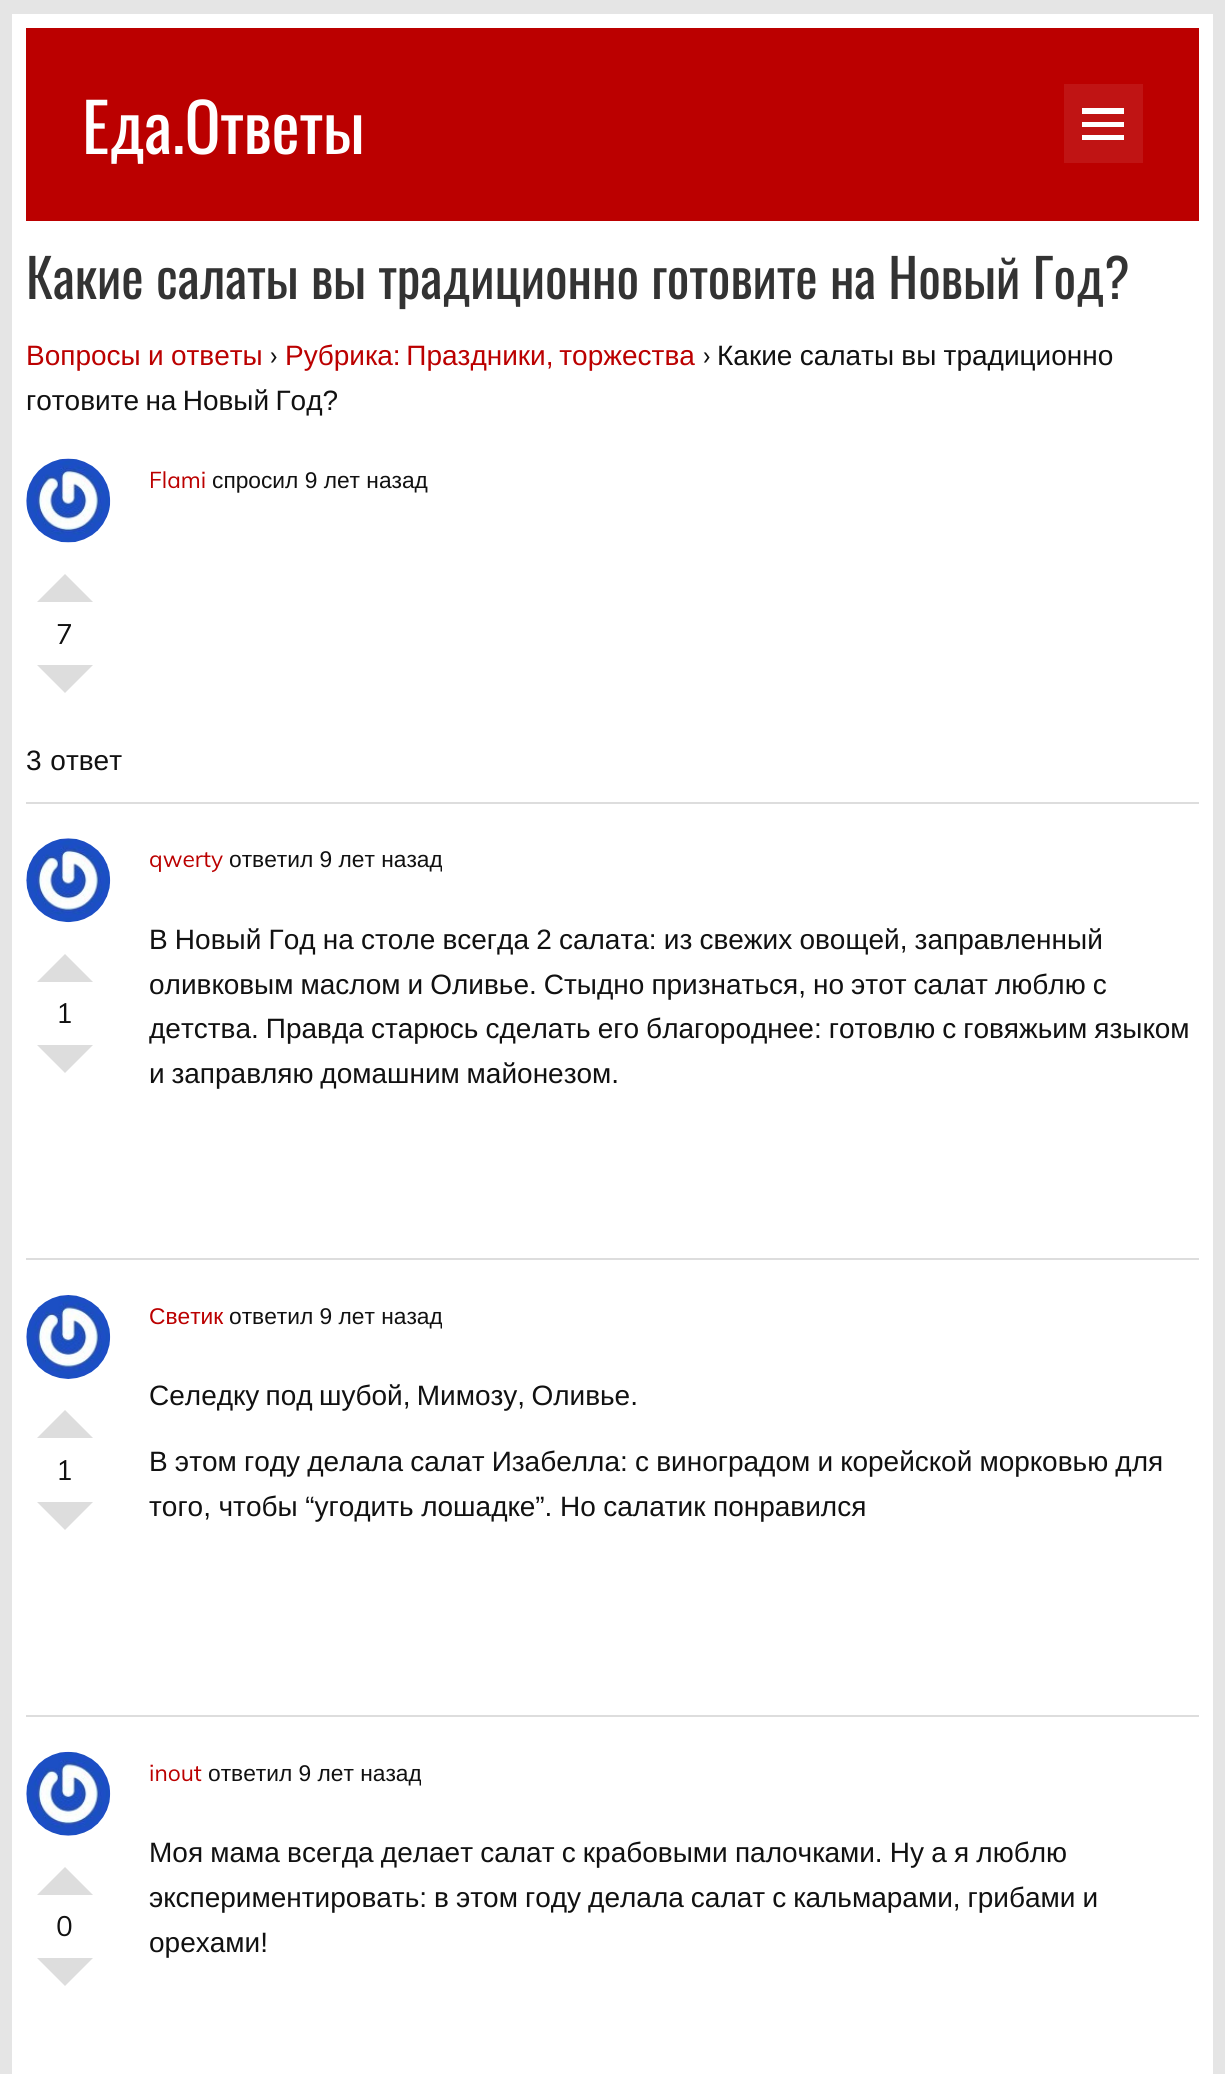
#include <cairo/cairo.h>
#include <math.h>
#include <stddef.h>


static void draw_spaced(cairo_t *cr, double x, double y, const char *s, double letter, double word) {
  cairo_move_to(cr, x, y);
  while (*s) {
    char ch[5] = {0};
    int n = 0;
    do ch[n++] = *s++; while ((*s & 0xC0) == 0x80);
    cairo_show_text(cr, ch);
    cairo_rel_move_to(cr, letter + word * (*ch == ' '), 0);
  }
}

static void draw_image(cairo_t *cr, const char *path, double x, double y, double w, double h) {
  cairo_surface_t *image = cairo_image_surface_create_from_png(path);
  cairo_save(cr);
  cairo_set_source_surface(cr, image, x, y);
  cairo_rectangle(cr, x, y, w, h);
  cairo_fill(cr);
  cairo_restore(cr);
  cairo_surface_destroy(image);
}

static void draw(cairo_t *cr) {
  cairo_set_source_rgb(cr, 229 / 255.0, 229 / 255.0, 229 / 255.0);
  cairo_paint(cr);
  cairo_set_source_rgb(cr, 1, 1, 1);
  cairo_rectangle(cr, 12, 14, 1201, 2060);
  cairo_fill(cr);
  cairo_set_source_rgb(cr, 187 / 255.0, 0, 0);
  cairo_rectangle(cr, 26, 28, 1173, 193);
  cairo_fill(cr);
  cairo_set_source_rgb(cr, 192 / 255.0, 20 / 255.0, 20 / 255.0);
  cairo_rectangle(cr, 1064, 84, 79, 79);
  cairo_fill(cr);
  cairo_set_source_rgb(cr, 1, 1, 1);
  cairo_new_path(cr);
  cairo_move_to(cr, 1082, 140);
  cairo_line_to(cr, 1082, 135);
  cairo_line_to(cr, 1124, 135);
  cairo_line_to(cr, 1124, 140);
  cairo_close_path(cr);
  cairo_move_to(cr, 1082, 108);
  cairo_line_to(cr, 1124, 108);
  cairo_line_to(cr, 1124, 114);
  cairo_line_to(cr, 1082, 114);
  cairo_close_path(cr);
  cairo_move_to(cr, 1082, 127);
  cairo_line_to(cr, 1082, 122);
  cairo_line_to(cr, 1124, 122);
  cairo_line_to(cr, 1124, 127);
  cairo_close_path(cr);
  cairo_fill(cr);
  draw_image(cr, "images/1.png", 26, 458, 85, 85);
  cairo_set_source_rgb(cr, 221 / 255.0, 221 / 255.0, 221 / 255.0);
  cairo_new_path(cr);
  cairo_move_to(cr, 93, 602);
  cairo_line_to(cr, 37, 602);
  cairo_line_to(cr, 65, 574);
  cairo_close_path(cr);
  cairo_fill(cr);
  cairo_new_path(cr);
  cairo_move_to(cr, 37, 665);
  cairo_line_to(cr, 93, 665);
  cairo_line_to(cr, 65, 693);
  cairo_close_path(cr);
  cairo_fill(cr);
  cairo_rectangle(cr, 26, 802, 1173, 2);
  cairo_fill(cr);
  draw_image(cr, "images/2.png", 26, 838, 85, 85);
  cairo_new_path(cr);
  cairo_move_to(cr, 93, 982);
  cairo_line_to(cr, 37, 982);
  cairo_line_to(cr, 65, 954);
  cairo_close_path(cr);
  cairo_fill(cr);
  cairo_new_path(cr);
  cairo_move_to(cr, 37, 1045);
  cairo_line_to(cr, 93, 1045);
  cairo_line_to(cr, 65, 1073);
  cairo_close_path(cr);
  cairo_fill(cr);
  cairo_rectangle(cr, 26, 1258, 1173, 2);
  cairo_fill(cr);
  draw_image(cr, "images/3.png", 26, 1295, 85, 84);
  cairo_new_path(cr);
  cairo_move_to(cr, 93, 1438);
  cairo_line_to(cr, 37, 1438);
  cairo_line_to(cr, 65, 1410);
  cairo_close_path(cr);
  cairo_fill(cr);
  cairo_new_path(cr);
  cairo_move_to(cr, 37, 1502);
  cairo_line_to(cr, 93, 1502);
  cairo_line_to(cr, 65, 1530);
  cairo_close_path(cr);
  cairo_fill(cr);
  cairo_rectangle(cr, 26, 1715, 1173, 2);
  cairo_fill(cr);
  draw_image(cr, "images/4.png", 26, 1751, 85, 85);
  cairo_new_path(cr);
  cairo_move_to(cr, 93, 1895);
  cairo_line_to(cr, 37, 1895);
  cairo_line_to(cr, 65, 1867);
  cairo_close_path(cr);
  cairo_fill(cr);
  cairo_new_path(cr);
  cairo_move_to(cr, 37, 1958);
  cairo_line_to(cr, 93, 1958);
  cairo_line_to(cr, 65, 1986);
  cairo_close_path(cr);
  cairo_fill(cr);
  cairo_select_font_face(cr, "Oswald", CAIRO_FONT_SLANT_NORMAL, CAIRO_FONT_WEIGHT_NORMAL);
  cairo_set_font_size(cr, 67);
  cairo_set_source_rgb(cr, 1, 1, 1);
  cairo_move_to(cr, 82, 154);
  cairo_show_text(cr, "Еда.Ответы");
  cairo_set_font_size(cr, 53.25);
  cairo_set_source_rgb(cr, 51 / 255.0, 51 / 255.0, 51 / 255.0);
  cairo_move_to(cr, 26, 299);
  cairo_show_text(cr, "Какие салаты вы традиционно готовите на Новый Год?");
  cairo_select_font_face(cr, "Liberation Sans", CAIRO_FONT_SLANT_NORMAL, CAIRO_FONT_WEIGHT_NORMAL);
  cairo_set_font_size(cr, 28);
  cairo_set_source_rgb(cr, 187 / 255.0, 0, 0);
  draw_spaced(cr, 26, 365, "Вопросы и ответы", 0, -0.5);
  cairo_select_font_face(cr, "Muli", CAIRO_FONT_SLANT_NORMAL, CAIRO_FONT_WEIGHT_NORMAL);
  cairo_set_source_rgb(cr, 17 / 255.0, 17 / 255.0, 17 / 255.0);
  cairo_move_to(cr, 270, 365);
  cairo_show_text(cr, "›");
  cairo_select_font_face(cr, "Liberation Sans", CAIRO_FONT_SLANT_NORMAL, CAIRO_FONT_WEIGHT_NORMAL);
  cairo_set_source_rgb(cr, 187 / 255.0, 0, 0);
  draw_spaced(cr, 285, 365, "Рубрика: Праздники, торжества", 0, -2);
  cairo_select_font_face(cr, "Muli", CAIRO_FONT_SLANT_NORMAL, CAIRO_FONT_WEIGHT_NORMAL);
  cairo_set_source_rgb(cr, 17 / 255.0, 17 / 255.0, 17 / 255.0);
  cairo_move_to(cr, 703, 365);
  cairo_show_text(cr, "›");
  cairo_select_font_face(cr, "Liberation Sans", CAIRO_FONT_SLANT_NORMAL, CAIRO_FONT_WEIGHT_NORMAL);
  draw_spaced(cr, 717, 365, "Какие салаты вы традиционно", 0, -0.5);
  draw_spaced(cr, 26, 410, "готовите на Новый Год?", 0, -1.5);
  cairo_select_font_face(cr, "Muli", CAIRO_FONT_SLANT_NORMAL, CAIRO_FONT_WEIGHT_NORMAL);
  cairo_set_font_size(cr, 22.75);
  cairo_set_source_rgb(cr, 187 / 255.0, 0, 0);
  cairo_move_to(cr, 149, 488);
  cairo_show_text(cr, "Flami");
  cairo_select_font_face(cr, "Liberation Sans", CAIRO_FONT_SLANT_NORMAL, CAIRO_FONT_WEIGHT_NORMAL);
  cairo_set_source_rgb(cr, 17 / 255.0, 17 / 255.0, 17 / 255.0);
  cairo_move_to(cr, 212, 488);
  cairo_show_text(cr, "спросил 9 лет назад");
  cairo_select_font_face(cr, "Muli", CAIRO_FONT_SLANT_NORMAL, CAIRO_FONT_WEIGHT_NORMAL);
  cairo_set_font_size(cr, 28);
  cairo_move_to(cr, 56, 644);
  cairo_show_text(cr, "7");
  cairo_select_font_face(cr, "Liberation Sans", CAIRO_FONT_SLANT_NORMAL, CAIRO_FONT_WEIGHT_NORMAL);
  draw_spaced(cr, 26, 770, "3 ответ", 0, 1);
  cairo_select_font_face(cr, "Muli", CAIRO_FONT_SLANT_NORMAL, CAIRO_FONT_WEIGHT_NORMAL);
  cairo_set_font_size(cr, 22.75);
  cairo_set_source_rgb(cr, 187 / 255.0, 0, 0);
  cairo_move_to(cr, 149, 867);
  cairo_show_text(cr, "qwerty");
  cairo_select_font_face(cr, "Liberation Sans", CAIRO_FONT_SLANT_NORMAL, CAIRO_FONT_WEIGHT_NORMAL);
  cairo_set_source_rgb(cr, 17 / 255.0, 17 / 255.0, 17 / 255.0);
  cairo_move_to(cr, 229, 867);
  cairo_show_text(cr, "ответил 9 лет назад");
  cairo_select_font_face(cr, "Muli", CAIRO_FONT_SLANT_NORMAL, CAIRO_FONT_WEIGHT_NORMAL);
  cairo_set_font_size(cr, 28);
  cairo_move_to(cr, 56, 1023);
  cairo_show_text(cr, "1");
  cairo_select_font_face(cr, "Liberation Sans", CAIRO_FONT_SLANT_NORMAL, CAIRO_FONT_WEIGHT_NORMAL);
  draw_spaced(cr, 149, 949, "В Новый Год на столе всегда 2 салата: из свежих овощей, заправленный", 0, -0.6);
  draw_spaced(cr, 149, 994, "оливковым маслом и Оливье. Стыдно признаться, но этот салат люблю с", 0, -0.75);
  draw_spaced(cr, 149, 1038, "детства. Правда старюсь сделать его благороднее: готовлю с говяжьим языком", 0, -0.75);
  draw_spaced(cr, 149, 1083, "и заправляю домашним майонезом.", 0, -1);
  cairo_set_font_size(cr, 22.75);
  cairo_set_source_rgb(cr, 187 / 255.0, 0, 0);
  cairo_move_to(cr, 149, 1324);
  cairo_show_text(cr, "Светик");
  cairo_set_source_rgb(cr, 17 / 255.0, 17 / 255.0, 17 / 255.0);
  cairo_move_to(cr, 229, 1324);
  cairo_show_text(cr, "ответил 9 лет назад");
  cairo_select_font_face(cr, "Muli", CAIRO_FONT_SLANT_NORMAL, CAIRO_FONT_WEIGHT_NORMAL);
  cairo_set_font_size(cr, 28);
  cairo_move_to(cr, 56, 1480);
  cairo_show_text(cr, "1");
  cairo_select_font_face(cr, "Liberation Sans", CAIRO_FONT_SLANT_NORMAL, CAIRO_FONT_WEIGHT_NORMAL);
  draw_spaced(cr, 149, 1405, "Селедку под шубой, Мимозу, Оливье.", 0, -1.5);
  draw_spaced(cr, 149, 1471, "В этом году делала салат Изабелла: с виноградом и корейской морковью для", 0, -0.6);
  draw_spaced(cr, 149, 1516, "того, чтобы “угодить лошадке”. Но салатик понравился", 0, -0.25);
  cairo_select_font_face(cr, "Muli", CAIRO_FONT_SLANT_NORMAL, CAIRO_FONT_WEIGHT_NORMAL);
  cairo_set_font_size(cr, 22.75);
  cairo_set_source_rgb(cr, 187 / 255.0, 0, 0);
  cairo_move_to(cr, 149, 1781);
  cairo_show_text(cr, "inout");
  cairo_select_font_face(cr, "Liberation Sans", CAIRO_FONT_SLANT_NORMAL, CAIRO_FONT_WEIGHT_NORMAL);
  cairo_set_source_rgb(cr, 17 / 255.0, 17 / 255.0, 17 / 255.0);
  cairo_move_to(cr, 208, 1781);
  cairo_show_text(cr, "ответил 9 лет назад");
  cairo_select_font_face(cr, "Muli", CAIRO_FONT_SLANT_NORMAL, CAIRO_FONT_WEIGHT_NORMAL);
  cairo_set_font_size(cr, 28);
  cairo_move_to(cr, 56, 1936);
  cairo_show_text(cr, "0");
  cairo_select_font_face(cr, "Liberation Sans", CAIRO_FONT_SLANT_NORMAL, CAIRO_FONT_WEIGHT_NORMAL);
  draw_spaced(cr, 149, 1862, "Моя мама всегда делает салат с крабовыми палочками. Ну а я люблю", 0, -0.6);
  draw_spaced(cr, 149, 1907, "экспериментировать: в этом году делала салат с кальмарами, грибами и", 0, -0.75);
  cairo_move_to(cr, 149, 1952);
  cairo_show_text(cr, "орехами!");
}

int main(void) {
  cairo_surface_t *surface = cairo_image_surface_create(CAIRO_FORMAT_RGB24, 1225, 2074);
  cairo_t *cr = cairo_create(surface);
  cairo_font_options_t *options = cairo_font_options_create();
  cairo_font_options_set_hint_metrics(options, CAIRO_HINT_METRICS_OFF);
  cairo_font_options_set_hint_style(options, CAIRO_HINT_STYLE_NONE);
  cairo_set_font_options(cr, options);
  cairo_set_miter_limit(cr, 4);
  draw(cr);
  cairo_surface_write_to_png(surface, "out.png");
  cairo_font_options_destroy(options);
  cairo_destroy(cr);
  cairo_surface_destroy(surface);
  return 0;
}
